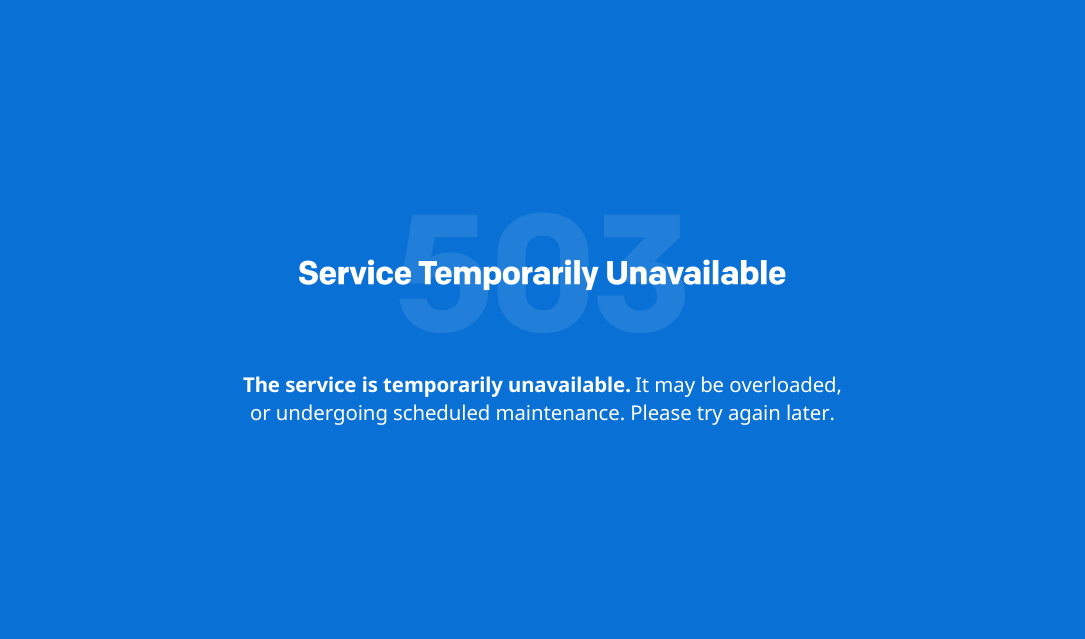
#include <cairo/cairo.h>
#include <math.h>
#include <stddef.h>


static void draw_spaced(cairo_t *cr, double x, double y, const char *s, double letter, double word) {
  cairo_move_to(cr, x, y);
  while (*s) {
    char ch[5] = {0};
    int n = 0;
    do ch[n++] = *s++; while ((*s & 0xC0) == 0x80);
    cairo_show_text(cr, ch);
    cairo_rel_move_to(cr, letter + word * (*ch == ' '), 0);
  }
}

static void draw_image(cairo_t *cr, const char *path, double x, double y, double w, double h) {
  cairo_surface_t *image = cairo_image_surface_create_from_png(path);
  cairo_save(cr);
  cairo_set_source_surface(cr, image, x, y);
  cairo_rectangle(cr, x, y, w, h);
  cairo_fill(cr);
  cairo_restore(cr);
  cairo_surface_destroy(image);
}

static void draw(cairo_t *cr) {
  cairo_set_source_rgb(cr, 9 / 255.0, 113 / 255.0, 213 / 255.0);
  cairo_paint(cr);
  draw_image(cr, "images/1.png", 299, 212, 487, 121);
  cairo_select_font_face(cr, "Noto Sans", CAIRO_FONT_SLANT_NORMAL, CAIRO_FONT_WEIGHT_BOLD);
  cairo_set_font_size(cr, 20.35);
  cairo_set_source_rgb(cr, 1, 1, 1);
  draw_spaced(cr, 243, 392, "The service is temporarily unavailable.", -0.07, 0);
  cairo_select_font_face(cr, "Noto Sans", CAIRO_FONT_SLANT_NORMAL, CAIRO_FONT_WEIGHT_NORMAL);
  draw_spaced(cr, 635, 392, "It may be overloaded,", -0.07, 0);
  draw_spaced(cr, 250, 420, "or undergoing scheduled maintenance. Please try again later.", -0.07, 0);
}

int main(void) {
  cairo_surface_t *surface = cairo_image_surface_create(CAIRO_FORMAT_RGB24, 1085, 639);
  cairo_t *cr = cairo_create(surface);
  cairo_font_options_t *options = cairo_font_options_create();
  cairo_font_options_set_hint_metrics(options, CAIRO_HINT_METRICS_OFF);
  cairo_font_options_set_hint_style(options, CAIRO_HINT_STYLE_NONE);
  cairo_set_font_options(cr, options);
  cairo_set_miter_limit(cr, 4);
  draw(cr);
  cairo_surface_write_to_png(surface, "out.png");
  cairo_font_options_destroy(options);
  cairo_destroy(cr);
  cairo_surface_destroy(surface);
  return 0;
}
